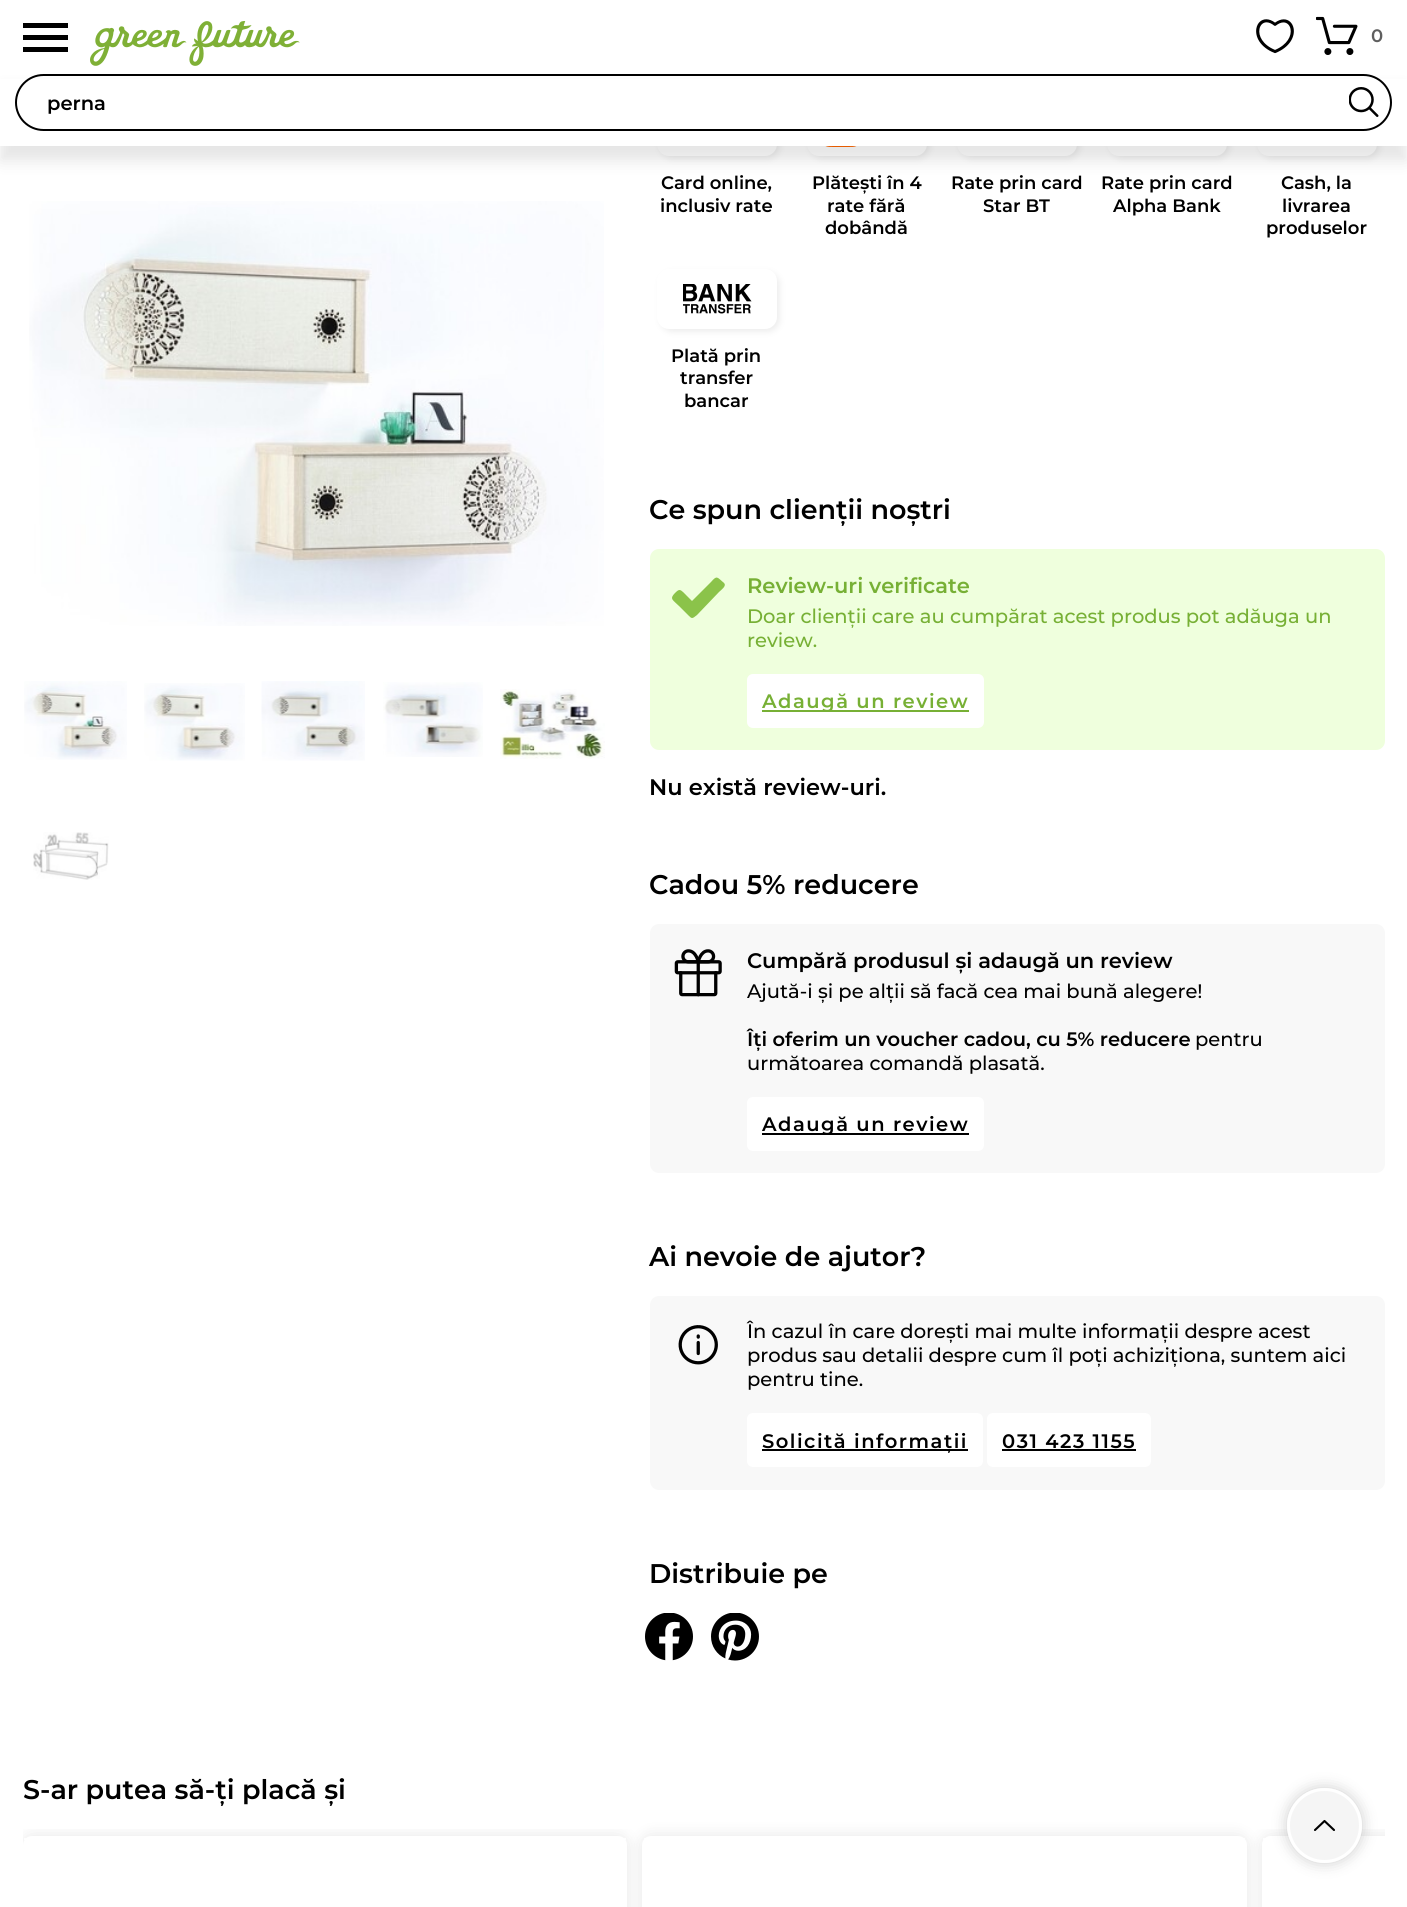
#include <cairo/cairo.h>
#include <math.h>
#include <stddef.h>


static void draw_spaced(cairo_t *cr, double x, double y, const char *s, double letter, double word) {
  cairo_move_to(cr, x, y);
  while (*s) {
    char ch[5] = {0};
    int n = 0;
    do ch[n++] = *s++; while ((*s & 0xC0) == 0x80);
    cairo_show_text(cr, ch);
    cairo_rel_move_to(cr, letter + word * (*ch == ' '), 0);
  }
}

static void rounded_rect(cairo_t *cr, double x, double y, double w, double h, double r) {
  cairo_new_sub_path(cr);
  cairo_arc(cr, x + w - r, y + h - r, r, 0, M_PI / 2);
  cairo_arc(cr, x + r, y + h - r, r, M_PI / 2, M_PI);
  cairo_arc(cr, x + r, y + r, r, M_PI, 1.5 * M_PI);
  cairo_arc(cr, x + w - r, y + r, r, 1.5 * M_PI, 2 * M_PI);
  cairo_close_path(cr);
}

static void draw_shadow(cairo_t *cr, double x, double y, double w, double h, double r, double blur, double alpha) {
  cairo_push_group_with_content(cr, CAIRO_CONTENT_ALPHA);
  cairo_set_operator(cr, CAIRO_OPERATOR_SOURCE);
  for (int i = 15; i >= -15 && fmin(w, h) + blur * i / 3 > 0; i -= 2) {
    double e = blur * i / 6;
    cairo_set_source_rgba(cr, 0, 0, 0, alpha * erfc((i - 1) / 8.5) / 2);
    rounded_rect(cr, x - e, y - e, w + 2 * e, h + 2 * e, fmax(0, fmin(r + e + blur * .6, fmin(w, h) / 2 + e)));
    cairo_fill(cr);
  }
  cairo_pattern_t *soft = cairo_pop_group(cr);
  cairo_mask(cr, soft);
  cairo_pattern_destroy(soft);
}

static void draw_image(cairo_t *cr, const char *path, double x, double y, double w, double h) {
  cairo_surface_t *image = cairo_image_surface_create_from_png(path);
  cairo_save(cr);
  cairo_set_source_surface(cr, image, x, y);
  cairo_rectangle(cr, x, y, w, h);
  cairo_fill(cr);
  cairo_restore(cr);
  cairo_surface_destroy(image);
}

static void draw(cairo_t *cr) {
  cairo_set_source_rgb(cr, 1, 1, 1);
  cairo_paint(cr);
  cairo_set_source_rgb(cr, 0, 0, 0);
  cairo_rectangle(cr, 23, 23, 45, 5);
  cairo_fill(cr);
  cairo_rectangle(cr, 23, 47, 45, 5);
  cairo_fill(cr);
  cairo_rectangle(cr, 23, 35, 45, 5);
  cairo_fill(cr);
  draw_image(cr, "images/1.png", 90, 21, 210, 45);
  draw_image(cr, "images/2.png", 1256, 19, 38, 35);
  draw_image(cr, "images/3.png", 1316, 16, 42, 39);
  cairo_set_source_rgb(cr, 238 / 255.0, 238 / 255.0, 238 / 255.0);
  draw_shadow(cr, 660, 99, 120, 60, 12, 3, 1);
  cairo_set_source_rgb(cr, 1, 1, 1);
  rounded_rect(cr, 657, 96, 120, 60, 12);
  cairo_fill(cr);
  cairo_set_source_rgb(cr, 238 / 255.0, 238 / 255.0, 238 / 255.0);
  draw_shadow(cr, 810, 99, 120, 60, 12, 3, 1);
  cairo_set_source_rgb(cr, 1, 1, 1);
  rounded_rect(cr, 807, 96, 120, 60, 12);
  cairo_fill(cr);
  draw_image(cr, "images/12.png", 825, 146, 32, 1);
  cairo_set_source_rgb(cr, 238 / 255.0, 238 / 255.0, 238 / 255.0);
  draw_shadow(cr, 960, 99, 120, 60, 12, 3, 1);
  cairo_set_source_rgb(cr, 1, 1, 1);
  rounded_rect(cr, 957, 96, 120, 60, 12);
  cairo_fill(cr);
  cairo_set_source_rgb(cr, 238 / 255.0, 238 / 255.0, 238 / 255.0);
  draw_shadow(cr, 1110, 99, 120, 60, 12, 3, 1);
  cairo_set_source_rgb(cr, 1, 1, 1);
  rounded_rect(cr, 1107, 96, 120, 60, 12);
  cairo_fill(cr);
  cairo_set_source_rgb(cr, 238 / 255.0, 238 / 255.0, 238 / 255.0);
  draw_shadow(cr, 1260, 99, 120, 60, 12, 3, 1);
  cairo_set_source_rgb(cr, 1, 1, 1);
  rounded_rect(cr, 1257, 96, 120, 60, 12);
  cairo_fill(cr);
  cairo_set_source_rgb(cr, 0, 0, 0);
  draw_shadow(cr, 0, 89, 1407, 72, 0, 7.5, 0.1);
  cairo_set_source_rgb(cr, 1, 1, 1);
  cairo_rectangle(cr, 0, 79, 1407, 67);
  cairo_fill(cr);
  rounded_rect(cr, 16, 75, 1375, 55, 27.5);
  cairo_set_source_rgb(cr, 0, 0, 0);
  cairo_stroke(cr);
  draw_image(cr, "images/4.png", 1349, 87, 30, 30);
  draw_image(cr, "images/5.png", 29, 201, 575, 425);
  draw_image(cr, "images/6.png", 24, 681, 103, 79);
  draw_image(cr, "images/7.png", 144, 683, 101, 78);
  draw_image(cr, "images/8.png", 261, 681, 104, 80);
  draw_image(cr, "images/9.png", 383, 682, 100, 75);
  draw_image(cr, "images/10.png", 500, 689, 105, 70);
  draw_image(cr, "images/11.png", 33, 832, 76, 48);
  cairo_set_source_rgb(cr, 238 / 255.0, 238 / 255.0, 238 / 255.0);
  draw_shadow(cr, 660, 272, 120, 60, 12, 3, 1);
  cairo_set_source_rgb(cr, 1, 1, 1);
  rounded_rect(cr, 657, 269, 120, 60, 12);
  cairo_fill(cr);
  draw_image(cr, "images/13.png", 683, 284, 69, 30);
  cairo_set_source_rgb(cr, 239 / 255.0, 1, 221 / 255.0);
  rounded_rect(cr, 650, 549, 735, 201, 9);
  cairo_fill(cr);
  cairo_set_source_rgb(cr, 139 / 255.0, 195 / 255.0, 74 / 255.0);
  cairo_new_path(cr);
  cairo_move_to(cr, 724, 583);
  cairo_curve_to(cr, 717, 577, 717, 575, 711, 582);
  cairo_line_to(cr, 692, 601);
  cairo_line_to(cr, 684, 593);
  cairo_curve_to(cr, 680, 589, 679, 589, 675, 593);
  cairo_curve_to(cr, 669, 599, 673, 600, 679, 606);
  cairo_line_to(cr, 688, 615);
  cairo_curve_to(cr, 692, 619, 692, 619, 697, 615);
  cairo_line_to(cr, 719, 592);
  cairo_curve_to(cr, 721, 590, 727, 586, 724, 583);
  cairo_close_path(cr);
  cairo_fill(cr);
  cairo_set_source_rgb(cr, 1, 1, 1);
  rounded_rect(cr, 747, 674, 237, 54, 6);
  cairo_fill(cr);
  cairo_set_source_rgb(cr, 119 / 255.0, 176 / 255.0, 53 / 255.0);
  cairo_rectangle(cr, 762, 710, 207, 2);
  cairo_fill(cr);
  cairo_set_source_rgb(cr, 248 / 255.0, 248 / 255.0, 248 / 255.0);
  rounded_rect(cr, 650, 924, 735, 249, 9);
  cairo_fill(cr);
  draw_image(cr, "images/14.png", 674, 949, 48, 48);
  cairo_set_source_rgb(cr, 1, 1, 1);
  rounded_rect(cr, 747, 1097, 237, 54, 6);
  cairo_fill(cr);
  cairo_set_source_rgb(cr, 0, 0, 0);
  cairo_rectangle(cr, 762, 1133, 207, 2);
  cairo_fill(cr);
  cairo_set_source_rgb(cr, 248 / 255.0, 248 / 255.0, 248 / 255.0);
  rounded_rect(cr, 650, 1296, 735, 194, 9);
  cairo_fill(cr);
  draw_image(cr, "images/15.png", 678, 1325, 40, 40);
  cairo_set_source_rgb(cr, 1, 1, 1);
  rounded_rect(cr, 747, 1413, 236, 54, 6);
  cairo_fill(cr);
  cairo_set_source_rgb(cr, 0, 0, 0);
  cairo_rectangle(cr, 762, 1449, 206, 2);
  cairo_fill(cr);
  cairo_set_source_rgb(cr, 1, 1, 1);
  rounded_rect(cr, 987, 1413, 164, 54, 6);
  cairo_fill(cr);
  cairo_set_source_rgb(cr, 0, 0, 0);
  cairo_rectangle(cr, 1002, 1449, 134, 2);
  cairo_fill(cr);
  draw_image(cr, "images/16.png", 645, 1613, 48, 48);
  draw_image(cr, "images/17.png", 711, 1613, 48, 48);
  cairo_save(cr);
  cairo_rectangle(cr, 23, 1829, 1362, 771);
  cairo_clip(cr);
  cairo_set_source_rgb(cr, 0, 0, 0);
  draw_shadow(cr, 23, 1836, 604, 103, 9, 7.5, 0.1);
  cairo_restore(cr);
  cairo_set_source_rgb(cr, 1, 1, 1);
  rounded_rect(cr, 23, 1836, 604, 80, 9);
  cairo_fill(cr);
  cairo_set_source_rgb(cr, 0, 0, 0);
  draw_shadow(cr, 642, 1836, 605, 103, 9, 7.5, 0.1);
  cairo_set_source_rgba(cr, 1, 1, 1, 0.9);
  cairo_rectangle(cr, 24, 1838, 602, 2);
  cairo_fill(cr);
  cairo_set_source_rgb(cr, 1, 1, 1);
  rounded_rect(cr, 642, 1836, 605, 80, 9);
  cairo_fill(cr);
  cairo_save(cr);
  cairo_rectangle(cr, 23, 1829, 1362, 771);
  cairo_clip(cr);
  cairo_set_fill_rule(cr, CAIRO_FILL_RULE_EVEN_ODD);
  cairo_new_path(cr);
  cairo_move_to(cr, 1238, 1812);
  cairo_line_to(cr, 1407, 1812);
  cairo_line_to(cr, 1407, 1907);
  cairo_line_to(cr, 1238, 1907);
  cairo_close_path(cr);
  cairo_move_to(cr, 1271, 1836);
  cairo_line_to(cr, 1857, 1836);
  cairo_curve_to(cr, 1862, 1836, 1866, 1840, 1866, 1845);
  cairo_line_to(cr, 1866, 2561);
  cairo_curve_to(cr, 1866, 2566, 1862, 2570, 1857, 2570);
  cairo_line_to(cr, 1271, 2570);
  cairo_curve_to(cr, 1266, 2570, 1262, 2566, 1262, 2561);
  cairo_line_to(cr, 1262, 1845);
  cairo_curve_to(cr, 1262, 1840, 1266, 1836, 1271, 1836);
  cairo_close_path(cr);
  cairo_clip(cr);
  cairo_set_source_rgb(cr, 0, 0, 0);
  draw_shadow(cr, 1262, 1836, 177, 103, 9, 7.5, 0.1);
  cairo_restore(cr);
  cairo_set_source_rgba(cr, 1, 1, 1, 0.9);
  cairo_rectangle(cr, 644, 1838, 601, 1);
  cairo_fill(cr);
  cairo_rectangle(cr, 1263, 1838, 2, 2);
  cairo_fill(cr);
  cairo_set_source_rgb(cr, 0, 0, 0);
  draw_shadow(cr, 1287, 1788, 75, 75, 37.5, 7.5, 0.2);
  cairo_set_source_rgb(cr, 245 / 255.0, 245 / 255.0, 245 / 255.0);
  cairo_arc(cr, 1324.5, 1825.5, 37.5, 0, 2 * M_PI);
  cairo_fill(cr);
  cairo_new_path(cr);
  cairo_move_to(cr, 1324.5, 1821);
  cairo_line_to(cr, 1334, 1830);
  cairo_move_to(cr, 1315, 1830);
  cairo_line_to(cr, 1324.5, 1821);
  cairo_set_source_rgb(cr, 0, 0, 0);
  cairo_set_line_width(cr, 2.1);
  cairo_set_line_cap(cr, CAIRO_LINE_CAP_ROUND);
  cairo_set_line_join(cr, CAIRO_LINE_JOIN_ROUND);
  cairo_stroke(cr);
  cairo_arc(cr, 1324.5, 1825.5, 36, 0, 2 * M_PI);
  cairo_set_source_rgb(cr, 1, 1, 1);
  cairo_set_line_width(cr, 3);
  cairo_set_line_cap(cr, CAIRO_LINE_CAP_BUTT);
  cairo_set_line_join(cr, CAIRO_LINE_JOIN_MITER);
  cairo_stroke(cr);
  cairo_select_font_face(cr, "Montserrat SemiBold", CAIRO_FONT_SLANT_NORMAL, CAIRO_FONT_WEIGHT_NORMAL);
  cairo_set_font_size(cr, 18);
  cairo_set_source_rgb(cr, 95 / 255.0, 95 / 255.0, 95 / 255.0);
  cairo_move_to(cr, 1371, 42);
  cairo_show_text(cr, "0");
  cairo_set_font_size(cr, 19.5);
  cairo_set_source_rgb(cr, 0, 0, 0);
  cairo_move_to(cr, 47, 110);
  cairo_show_text(cr, "perna");
  cairo_set_font_size(cr, 18);
  cairo_move_to(cr, 661, 189);
  cairo_show_text(cr, "Card online,");
  cairo_move_to(cr, 660, 212);
  cairo_show_text(cr, "inclusiv rate");
  cairo_move_to(cr, 812, 189);
  cairo_show_text(cr, "Plătești în 4");
  cairo_move_to(cr, 827, 212);
  cairo_show_text(cr, "rate fără");
  cairo_move_to(cr, 825, 234);
  cairo_show_text(cr, "dobândă");
  cairo_move_to(cr, 951, 189);
  cairo_show_text(cr, "Rate prin card");
  cairo_move_to(cr, 983, 212);
  cairo_show_text(cr, "Star BT");
  cairo_move_to(cr, 1101, 189);
  cairo_show_text(cr, "Rate prin card");
  cairo_move_to(cr, 1113, 212);
  cairo_show_text(cr, "Alpha Bank");
  cairo_move_to(cr, 1281, 189);
  cairo_show_text(cr, "Cash, la");
  cairo_move_to(cr, 1282, 212);
  cairo_show_text(cr, "livrarea");
  cairo_move_to(cr, 1266, 234);
  cairo_show_text(cr, "produselor");
  cairo_move_to(cr, 671, 362);
  cairo_show_text(cr, "Plată prin");
  cairo_move_to(cr, 680, 384);
  cairo_show_text(cr, "transfer");
  cairo_move_to(cr, 684, 407);
  cairo_show_text(cr, "bancar");
  cairo_set_font_size(cr, 27);
  cairo_move_to(cr, 649, 519);
  cairo_show_text(cr, "Ce spun clienții noștri");
  cairo_set_font_size(cr, 21);
  cairo_set_source_rgb(cr, 119 / 255.0, 176 / 255.0, 53 / 255.0);
  cairo_move_to(cr, 747, 593);
  cairo_show_text(cr, "Review-uri verificate");
  cairo_select_font_face(cr, "Montserrat Medium", CAIRO_FONT_SLANT_NORMAL, CAIRO_FONT_WEIGHT_NORMAL);
  cairo_set_font_size(cr, 19.5);
  cairo_move_to(cr, 747, 623);
  cairo_show_text(cr, "Doar clienții care au cumpărat acest produs pot adăuga un");
  cairo_move_to(cr, 747, 647);
  cairo_show_text(cr, "review.");
  cairo_select_font_face(cr, "Montserrat SemiBold", CAIRO_FONT_SLANT_NORMAL, CAIRO_FONT_WEIGHT_NORMAL);
  draw_spaced(cr, 762, 708, "Adaugă un review", 1.5, 0);
  cairo_set_font_size(cr, 22.5);
  cairo_set_source_rgb(cr, 0, 0, 0);
  cairo_move_to(cr, 649, 795);
  cairo_show_text(cr, "Nu există review-uri.");
  cairo_set_font_size(cr, 27);
  cairo_move_to(cr, 649, 894);
  cairo_show_text(cr, "Cadou 5% reducere");
  cairo_set_font_size(cr, 21);
  cairo_move_to(cr, 747, 968);
  cairo_show_text(cr, "Cumpără produsul și adaugă un review");
  cairo_select_font_face(cr, "Montserrat Medium", CAIRO_FONT_SLANT_NORMAL, CAIRO_FONT_WEIGHT_NORMAL);
  cairo_set_font_size(cr, 19.5);
  cairo_move_to(cr, 747, 998);
  cairo_show_text(cr, "Ajută-i și pe alții să facă cea mai bună alegere!");
  cairo_select_font_face(cr, "Montserrat SemiBold", CAIRO_FONT_SLANT_NORMAL, CAIRO_FONT_WEIGHT_NORMAL);
  cairo_move_to(cr, 747, 1046);
  cairo_show_text(cr, "Îți oferim un voucher cadou, cu 5% reducere");
  cairo_select_font_face(cr, "Montserrat Medium", CAIRO_FONT_SLANT_NORMAL, CAIRO_FONT_WEIGHT_NORMAL);
  cairo_move_to(cr, 1195, 1046);
  cairo_show_text(cr, "pentru");
  cairo_move_to(cr, 747, 1070);
  cairo_show_text(cr, "următoarea comandă plasată.");
  cairo_select_font_face(cr, "Montserrat SemiBold", CAIRO_FONT_SLANT_NORMAL, CAIRO_FONT_WEIGHT_NORMAL);
  draw_spaced(cr, 762, 1131, "Adaugă un review", 1.5, 0);
  cairo_set_font_size(cr, 27);
  cairo_move_to(cr, 649, 1266);
  cairo_show_text(cr, "Ai nevoie de ajutor?");
  cairo_select_font_face(cr, "Montserrat Medium", CAIRO_FONT_SLANT_NORMAL, CAIRO_FONT_WEIGHT_NORMAL);
  cairo_set_font_size(cr, 19.5);
  cairo_move_to(cr, 747, 1338);
  cairo_show_text(cr, "În cazul în care dorești mai multe informații despre acest");
  cairo_move_to(cr, 747, 1362);
  cairo_show_text(cr, "produs sau detalii despre cum îl poți achiziționa, suntem aici");
  cairo_move_to(cr, 747, 1386);
  cairo_show_text(cr, "pentru tine.");
  cairo_select_font_face(cr, "Montserrat SemiBold", CAIRO_FONT_SLANT_NORMAL, CAIRO_FONT_WEIGHT_NORMAL);
  draw_spaced(cr, 762, 1448, "Solicită informații", 1.5, 0);
  draw_spaced(cr, 1002, 1448, "031 423 1155", 1.5, 0);
  cairo_set_font_size(cr, 27);
  cairo_move_to(cr, 649, 1583);
  cairo_show_text(cr, "Distribuie pe");
  cairo_move_to(cr, 23, 1799);
  cairo_show_text(cr, "S-ar putea să-ți placă și");
}

int main(void) {
  cairo_surface_t *surface = cairo_image_surface_create(CAIRO_FORMAT_RGB24, 1407, 1907);
  cairo_t *cr = cairo_create(surface);
  cairo_font_options_t *options = cairo_font_options_create();
  cairo_font_options_set_hint_metrics(options, CAIRO_HINT_METRICS_OFF);
  cairo_font_options_set_hint_style(options, CAIRO_HINT_STYLE_NONE);
  cairo_set_font_options(cr, options);
  cairo_set_miter_limit(cr, 4);
  draw(cr);
  cairo_surface_write_to_png(surface, "out.png");
  cairo_font_options_destroy(options);
  cairo_destroy(cr);
  cairo_surface_destroy(surface);
  return 0;
}
